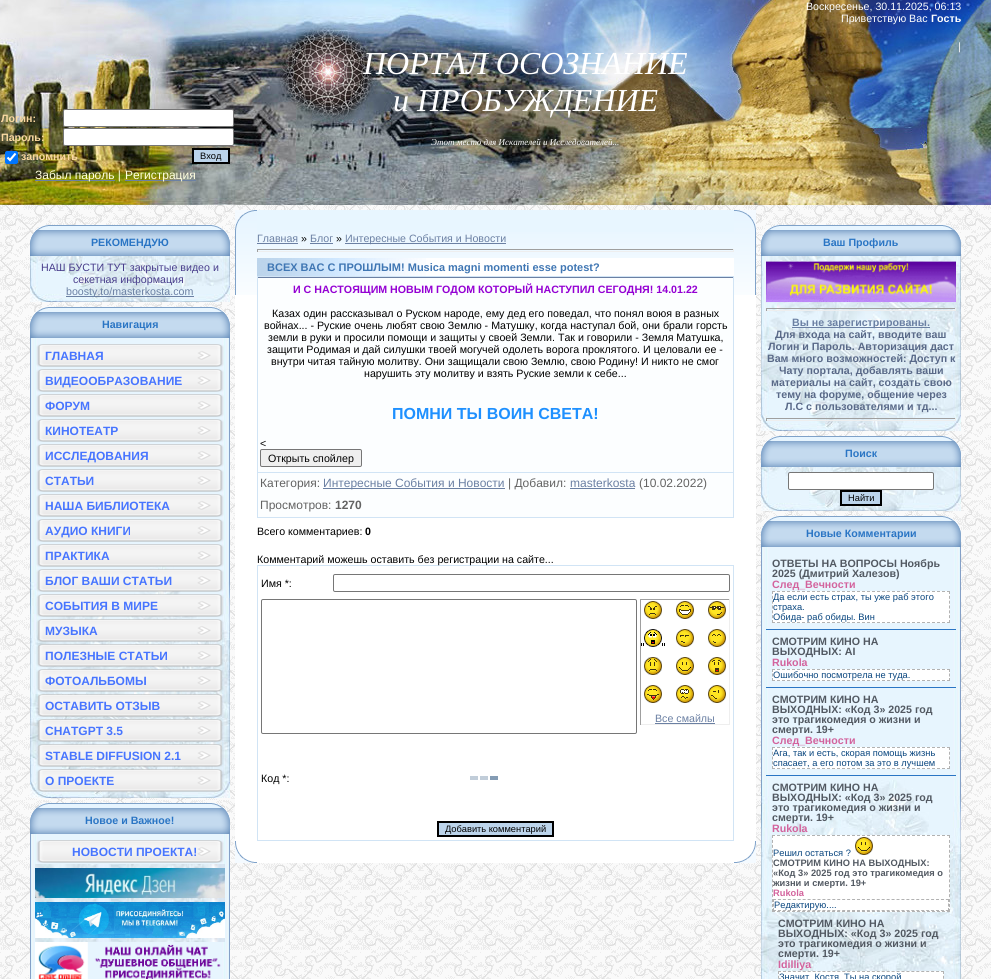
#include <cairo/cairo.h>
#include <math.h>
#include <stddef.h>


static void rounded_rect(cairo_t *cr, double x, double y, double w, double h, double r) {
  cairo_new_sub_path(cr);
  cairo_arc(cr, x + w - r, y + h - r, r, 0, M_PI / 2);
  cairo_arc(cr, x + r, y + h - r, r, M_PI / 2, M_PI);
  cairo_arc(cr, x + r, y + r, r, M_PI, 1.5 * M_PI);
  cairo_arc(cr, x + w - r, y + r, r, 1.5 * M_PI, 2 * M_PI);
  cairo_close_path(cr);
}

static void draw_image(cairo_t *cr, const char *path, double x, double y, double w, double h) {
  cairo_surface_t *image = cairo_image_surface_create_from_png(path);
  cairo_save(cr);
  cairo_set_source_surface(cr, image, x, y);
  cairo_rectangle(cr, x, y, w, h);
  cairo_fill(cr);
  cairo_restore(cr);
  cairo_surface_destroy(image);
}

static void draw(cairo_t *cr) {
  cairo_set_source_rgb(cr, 1, 1, 1);
  cairo_paint(cr);
  draw_image(cr, "images/1.png", 0, 205, 991, 774);
  draw_image(cr, "images/2.png", 0, 0, 991, 205);
  cairo_set_source_rgb(cr, 1, 1, 1);
  rounded_rect(cr, 63.5, 109.5, 170, 17, 1.5);
  cairo_fill_preserve(cr);
  cairo_set_source_rgb(cr, 118 / 255.0, 118 / 255.0, 118 / 255.0);
  cairo_set_line_width(cr, 1);
  cairo_stroke(cr);
  cairo_set_source_rgb(cr, 1, 1, 1);
  rounded_rect(cr, 63.5, 128.5, 170, 17, 1.5);
  cairo_fill_preserve(cr);
  cairo_set_source_rgb(cr, 118 / 255.0, 118 / 255.0, 118 / 255.0);
  cairo_stroke(cr);
  cairo_set_source_rgb(cr, 0, 117 / 255.0, 1);
  rounded_rect(cr, 5, 151, 13, 13, 2);
  cairo_fill(cr);
  cairo_new_path(cr);
  cairo_move_to(cr, 7.5, 157.5);
  cairo_line_to(cr, 10, 160);
  cairo_line_to(cr, 15.5, 153.5);
  cairo_set_source_rgb(cr, 1, 1, 1);
  cairo_set_line_width(cr, 2.1);
  cairo_stroke(cr);
  cairo_set_source_rgb(cr, 188 / 255.0, 212 / 255.0, 235 / 255.0);
  cairo_rectangle(cr, 193, 149, 36, 14);
  cairo_fill_preserve(cr);
  cairo_set_source_rgb(cr, 0, 0, 0);
  cairo_set_line_width(cr, 2);
  cairo_stroke(cr);
  cairo_set_source_rgb(cr, 107 / 255.0, 128 / 255.0, 163 / 255.0);
  cairo_rectangle(cr, 35, 180, 80, 1);
  cairo_fill(cr);
  cairo_rectangle(cr, 125, 180, 71, 1);
  cairo_fill(cr);
  draw_image(cr, "images/3.png", 30, 225, 200, 31);
  draw_image(cr, "images/4.png", 30, 256, 200, 46);
  cairo_rectangle(cr, 66, 296, 128, 1);
  cairo_fill(cr);
  draw_image(cr, "images/5.png", 30, 307, 200, 31);
  draw_image(cr, "images/6.png", 30, 338, 200, 460);
  draw_image(cr, "images/7.png", 36, 344, 188, 23);
  draw_image(cr, "images/7.png", 36, 369, 188, 23);
  draw_image(cr, "images/7.png", 36, 394, 188, 23);
  draw_image(cr, "images/7.png", 36, 419, 188, 23);
  draw_image(cr, "images/7.png", 36, 444, 188, 23);
  draw_image(cr, "images/7.png", 36, 469, 188, 23);
  draw_image(cr, "images/7.png", 36, 494, 188, 23);
  draw_image(cr, "images/7.png", 36, 519, 188, 23);
  draw_image(cr, "images/8.png", 36, 544, 188, 23);
  draw_image(cr, "images/9.png", 36, 569, 188, 23);
  draw_image(cr, "images/10.png", 36, 594, 188, 23);
  draw_image(cr, "images/11.png", 36, 619, 188, 23);
  draw_image(cr, "images/12.png", 36, 644, 188, 23);
  draw_image(cr, "images/13.png", 36, 669, 188, 23);
  draw_image(cr, "images/14.png", 36, 694, 188, 23);
  draw_image(cr, "images/15.png", 36, 719, 188, 23);
  draw_image(cr, "images/16.png", 36, 744, 188, 23);
  draw_image(cr, "images/17.png", 36, 769, 188, 23);
  draw_image(cr, "images/18.png", 30, 803, 200, 31);
  draw_image(cr, "images/19.png", 30, 834, 200, 145);
  draw_image(cr, "images/7.png", 36, 840, 188, 23);
  draw_image(cr, "images/20.png", 35, 864, 190, 4);
  draw_image(cr, "images/21.png", 35, 868, 190, 30);
  draw_image(cr, "images/20.png", 35, 898, 190, 4);
  draw_image(cr, "images/22.png", 35, 902, 190, 36);
  draw_image(cr, "images/20.png", 35, 938, 190, 4);
  draw_image(cr, "images/23.png", 35, 942, 186, 37);
  draw_image(cr, "images/24.png", 235, 210, 22, 22);
  cairo_set_source_rgb(cr, 232 / 255.0, 246 / 255.0, 1);
  cairo_rectangle(cr, 257, 210, 477, 22);
  cairo_fill(cr);
  draw_image(cr, "images/25.png", 734, 210, 22, 22);
  cairo_set_source_rgb(cr, 1, 1, 1);
  cairo_rectangle(cr, 235, 295, 22, 546);
  cairo_fill(cr);
  draw_image(cr, "images/26.png", 235, 232, 22, 63);
  cairo_rectangle(cr, 257, 518, 477, 322);
  cairo_fill(cr);
  draw_image(cr, "images/27.png", 257, 232, 477, 26);
  cairo_set_source_rgb(cr, 107 / 255.0, 128 / 255.0, 163 / 255.0);
  cairo_rectangle(cr, 257, 243, 41, 1);
  cairo_fill(cr);
  cairo_rectangle(cr, 310, 243, 23, 1);
  cairo_fill(cr);
  cairo_rectangle(cr, 345, 243, 161, 1);
  cairo_fill(cr);
  cairo_set_source_rgb(cr, 159 / 255.0, 159 / 255.0, 159 / 255.0);
  cairo_rectangle(cr, 257, 249, 477, 1);
  cairo_fill(cr);
  cairo_set_source_rgb(cr, 238 / 255.0, 238 / 255.0, 238 / 255.0);
  cairo_rectangle(cr, 733, 249, 1, 3);
  cairo_fill(cr);
  cairo_rectangle(cr, 257, 251, 477, 1);
  cairo_fill(cr);
  cairo_set_source_rgb(cr, 159 / 255.0, 159 / 255.0, 159 / 255.0);
  cairo_rectangle(cr, 257, 249, 1, 3);
  cairo_fill(cr);
  cairo_set_source_rgb(cr, 1, 1, 1);
  cairo_rectangle(cr, 426, 258, 308, 18);
  cairo_fill(cr);
  draw_image(cr, "images/28.png", 257, 258, 169, 18);
  cairo_set_source_rgb(cr, 252 / 255.0, 254 / 255.0, 1);
  cairo_rectangle(cr, 258, 278, 475, 239);
  cairo_fill(cr);
  cairo_rectangle(cr, 257.5, 276.5, 476, 241);
  cairo_set_source_rgb(cr, 209 / 255.0, 228 / 255.0, 245 / 255.0);
  cairo_set_line_width(cr, 1);
  cairo_stroke(cr);
  cairo_set_source_rgb(cr, 107 / 255.0, 128 / 255.0, 163 / 255.0);
  cairo_rectangle(cr, 258, 277, 475, 1);
  cairo_fill(cr);
  cairo_set_source_rgb(cr, 239 / 255.0, 239 / 255.0, 239 / 255.0);
  rounded_rect(cr, 260.5, 449.5, 101, 17, 1.5);
  cairo_fill_preserve(cr);
  cairo_set_source_rgb(cr, 118 / 255.0, 118 / 255.0, 118 / 255.0);
  cairo_stroke(cr);
  cairo_set_source_rgb(cr, 209 / 255.0, 228 / 255.0, 245 / 255.0);
  cairo_rectangle(cr, 258, 472, 475, 1);
  cairo_fill(cr);
  cairo_set_source_rgb(cr, 107 / 255.0, 128 / 255.0, 163 / 255.0);
  cairo_rectangle(cr, 323, 488, 182, 1);
  cairo_fill(cr);
  cairo_rectangle(cr, 570, 488, 65, 1);
  cairo_fill(cr);
  cairo_rectangle(cr, 257.5, 565.5, 476, 275);
  cairo_set_source_rgb(cr, 209 / 255.0, 228 / 255.0, 245 / 255.0);
  cairo_stroke(cr);
  rounded_rect(cr, 333.5, 574.5, 396, 17, 1.5);
  cairo_set_source_rgb(cr, 118 / 255.0, 118 / 255.0, 118 / 255.0);
  cairo_stroke(cr);
  rounded_rect(cr, 261.5, 599.5, 375, 134, 1.5);
  cairo_stroke(cr);
  cairo_set_source_rgb(cr, 159 / 255.0, 159 / 255.0, 159 / 255.0);
  cairo_rectangle(cr, 640, 599, 90, 1);
  cairo_fill(cr);
  cairo_set_source_rgb(cr, 238 / 255.0, 238 / 255.0, 238 / 255.0);
  cairo_rectangle(cr, 729, 599, 1, 126);
  cairo_fill(cr);
  cairo_rectangle(cr, 640, 724, 90, 1);
  cairo_fill(cr);
  cairo_set_source_rgb(cr, 159 / 255.0, 159 / 255.0, 159 / 255.0);
  cairo_rectangle(cr, 640, 599, 1, 126);
  cairo_fill(cr);
  draw_image(cr, "images/29.png", 644, 601, 18, 18);
  draw_image(cr, "images/30.png", 676, 601, 18, 18);
  draw_image(cr, "images/31.png", 708, 601, 18, 18);
  draw_image(cr, "images/32.png", 641, 629, 24, 18);
  draw_image(cr, "images/33.png", 676, 629, 18, 18);
  draw_image(cr, "images/34.png", 708, 629, 18, 18);
  draw_image(cr, "images/35.png", 644, 657, 18, 18);
  draw_image(cr, "images/36.png", 676, 657, 18, 18);
  draw_image(cr, "images/37.png", 708, 657, 18, 18);
  draw_image(cr, "images/38.png", 644, 685, 18, 18);
  draw_image(cr, "images/39.png", 676, 685, 18, 18);
  draw_image(cr, "images/40.png", 708, 685, 18, 18);
  cairo_set_source_rgb(cr, 107 / 255.0, 128 / 255.0, 163 / 255.0);
  cairo_rectangle(cr, 655, 723, 60, 1);
  cairo_fill(cr);
  draw_image(cr, "images/41.png", 470, 776, 28, 4);
  cairo_set_source_rgb(cr, 188 / 255.0, 212 / 255.0, 235 / 255.0);
  cairo_rectangle(cr, 438, 822, 115, 14);
  cairo_fill_preserve(cr);
  cairo_set_source_rgb(cr, 0, 0, 0);
  cairo_set_line_width(cr, 2);
  cairo_stroke(cr);
  cairo_set_source_rgb(cr, 1, 1, 1);
  cairo_rectangle(cr, 734, 295, 22, 546);
  cairo_fill(cr);
  draw_image(cr, "images/42.png", 734, 232, 22, 63);
  draw_image(cr, "images/43.png", 235, 841, 22, 22);
  cairo_rectangle(cr, 257, 841, 477, 22);
  cairo_fill(cr);
  draw_image(cr, "images/44.png", 734, 841, 22, 22);
  draw_image(cr, "images/45.png", 761, 225, 200, 31);
  draw_image(cr, "images/46.png", 761, 256, 200, 175);
  draw_image(cr, "images/47.png", 766, 261, 190, 42);
  cairo_set_source_rgb(cr, 159 / 255.0, 159 / 255.0, 159 / 255.0);
  cairo_rectangle(cr, 766, 308, 190, 1);
  cairo_fill(cr);
  cairo_set_source_rgb(cr, 238 / 255.0, 238 / 255.0, 238 / 255.0);
  cairo_rectangle(cr, 955, 308, 1, 3);
  cairo_fill(cr);
  cairo_rectangle(cr, 766, 310, 190, 1);
  cairo_fill(cr);
  cairo_set_source_rgb(cr, 159 / 255.0, 159 / 255.0, 159 / 255.0);
  cairo_rectangle(cr, 766, 308, 1, 3);
  cairo_fill(cr);
  cairo_set_source_rgb(cr, 107 / 255.0, 128 / 255.0, 163 / 255.0);
  cairo_rectangle(cr, 792, 327, 138, 1);
  cairo_fill(cr);
  cairo_set_source_rgb(cr, 159 / 255.0, 159 / 255.0, 159 / 255.0);
  cairo_rectangle(cr, 766, 418, 190, 1);
  cairo_fill(cr);
  cairo_set_source_rgb(cr, 238 / 255.0, 238 / 255.0, 238 / 255.0);
  cairo_rectangle(cr, 955, 418, 1, 3);
  cairo_fill(cr);
  cairo_rectangle(cr, 766, 420, 190, 1);
  cairo_fill(cr);
  cairo_set_source_rgb(cr, 159 / 255.0, 159 / 255.0, 159 / 255.0);
  cairo_rectangle(cr, 766, 418, 1, 3);
  cairo_fill(cr);
  draw_image(cr, "images/48.png", 761, 436, 200, 31);
  draw_image(cr, "images/49.png", 761, 467, 200, 44);
  cairo_set_source_rgb(cr, 1, 1, 1);
  rounded_rect(cr, 788.5, 472.5, 145, 17, 1.5);
  cairo_fill_preserve(cr);
  cairo_set_source_rgb(cr, 118 / 255.0, 118 / 255.0, 118 / 255.0);
  cairo_set_line_width(cr, 1);
  cairo_stroke(cr);
  cairo_set_source_rgb(cr, 188 / 255.0, 212 / 255.0, 235 / 255.0);
  cairo_rectangle(cr, 841, 491, 40, 14);
  cairo_fill_preserve(cr);
  cairo_set_source_rgb(cr, 0, 0, 0);
  cairo_set_line_width(cr, 2);
  cairo_stroke(cr);
  draw_image(cr, "images/50.png", 761, 516, 200, 31);
  draw_image(cr, "images/51.png", 761, 547, 200, 432);
  cairo_set_source_rgb(cr, 42 / 255.0, 117 / 255.0, 196 / 255.0);
  cairo_rectangle(cr, 766, 629, 190, 1);
  cairo_fill(cr);
  cairo_set_source_rgb(cr, 1, 1, 1);
  cairo_rectangle(cr, 772, 591, 178, 32);
  cairo_fill(cr);
  cairo_new_path(cr);
  cairo_move_to(cr, 772, 591.5);
  cairo_line_to(cr, 950, 591.5);
  cairo_set_source_rgb(cr, 178 / 255.0, 178 / 255.0, 178 / 255.0);
  cairo_set_line_width(cr, 1);
  cairo_set_dash(cr, (double[]){3, 2}, 2, 0);
  cairo_stroke(cr);
  cairo_new_path(cr);
  cairo_move_to(cr, 949.5, 591);
  cairo_line_to(cr, 949.5, 623);
  cairo_set_dash(cr, (double[]){3, 1.83}, 2, 0);
  cairo_stroke(cr);
  cairo_new_path(cr);
  cairo_move_to(cr, 772, 622.5);
  cairo_line_to(cr, 950, 622.5);
  cairo_set_dash(cr, (double[]){3, 2}, 2, 0);
  cairo_stroke(cr);
  cairo_new_path(cr);
  cairo_move_to(cr, 772.5, 591);
  cairo_line_to(cr, 772.5, 623);
  cairo_set_dash(cr, (double[]){3, 1.83}, 2, 0);
  cairo_stroke(cr);
  cairo_set_source_rgb(cr, 42 / 255.0, 117 / 255.0, 196 / 255.0);
  cairo_rectangle(cr, 766, 687, 190, 1);
  cairo_fill(cr);
  cairo_set_source_rgb(cr, 1, 1, 1);
  cairo_rectangle(cr, 772, 669, 178, 12);
  cairo_fill(cr);
  cairo_new_path(cr);
  cairo_move_to(cr, 772, 669.5);
  cairo_line_to(cr, 950, 669.5);
  cairo_set_source_rgb(cr, 178 / 255.0, 178 / 255.0, 178 / 255.0);
  cairo_set_dash(cr, (double[]){3, 2}, 2, 0);
  cairo_stroke(cr);
  cairo_new_path(cr);
  cairo_move_to(cr, 949.5, 669);
  cairo_line_to(cr, 949.5, 672);
  cairo_move_to(cr, 949.5, 673.5);
  cairo_line_to(cr, 949.5, 676.5);
  cairo_move_to(cr, 949.5, 678);
  cairo_line_to(cr, 949.5, 681);
  cairo_set_dash(cr, NULL, 0, 0);
  cairo_stroke(cr);
  cairo_new_path(cr);
  cairo_move_to(cr, 772, 680.5);
  cairo_line_to(cr, 950, 680.5);
  cairo_set_dash(cr, (double[]){3, 2}, 2, 0);
  cairo_stroke(cr);
  cairo_new_path(cr);
  cairo_move_to(cr, 772.5, 669);
  cairo_line_to(cr, 772.5, 672);
  cairo_move_to(cr, 772.5, 673.5);
  cairo_line_to(cr, 772.5, 676.5);
  cairo_move_to(cr, 772.5, 678);
  cairo_line_to(cr, 772.5, 681);
  cairo_set_dash(cr, NULL, 0, 0);
  cairo_stroke(cr);
  cairo_set_source_rgb(cr, 42 / 255.0, 117 / 255.0, 196 / 255.0);
  cairo_rectangle(cr, 766, 775, 190, 1);
  cairo_fill(cr);
  cairo_set_source_rgb(cr, 1, 1, 1);
  cairo_rectangle(cr, 772, 747, 178, 22);
  cairo_fill(cr);
  cairo_new_path(cr);
  cairo_move_to(cr, 772, 747.5);
  cairo_line_to(cr, 950, 747.5);
  cairo_set_source_rgb(cr, 178 / 255.0, 178 / 255.0, 178 / 255.0);
  cairo_set_dash(cr, (double[]){3, 2}, 2, 0);
  cairo_stroke(cr);
  cairo_new_path(cr);
  cairo_move_to(cr, 949.5, 747);
  cairo_line_to(cr, 949.5, 769);
  cairo_set_dash(cr, (double[]){3, 1.75}, 2, 0);
  cairo_stroke(cr);
  cairo_new_path(cr);
  cairo_move_to(cr, 772, 768.5);
  cairo_line_to(cr, 950, 768.5);
  cairo_set_dash(cr, (double[]){3, 2}, 2, 0);
  cairo_stroke(cr);
  cairo_new_path(cr);
  cairo_move_to(cr, 772.5, 747);
  cairo_line_to(cr, 772.5, 769);
  cairo_set_dash(cr, (double[]){3, 1.75}, 2, 0);
  cairo_stroke(cr);
  cairo_set_source_rgb(cr, 1, 1, 1);
  cairo_rectangle(cr, 772, 835, 178, 77);
  cairo_fill(cr);
  cairo_new_path(cr);
  cairo_move_to(cr, 772, 835.5);
  cairo_line_to(cr, 950, 835.5);
  cairo_set_source_rgb(cr, 178 / 255.0, 178 / 255.0, 178 / 255.0);
  cairo_set_dash(cr, (double[]){3, 2}, 2, 0);
  cairo_stroke(cr);
  cairo_new_path(cr);
  cairo_move_to(cr, 949.5, 835);
  cairo_line_to(cr, 949.5, 912);
  cairo_set_dash(cr, (double[]){3, 1.93}, 2, 0);
  cairo_stroke(cr);
  cairo_new_path(cr);
  cairo_move_to(cr, 772, 911.5);
  cairo_line_to(cr, 950, 911.5);
  cairo_set_dash(cr, (double[]){3, 2}, 2, 0);
  cairo_stroke(cr);
  cairo_new_path(cr);
  cairo_move_to(cr, 772.5, 835);
  cairo_line_to(cr, 772.5, 912);
  cairo_set_dash(cr, (double[]){3, 1.93}, 2, 0);
  cairo_stroke(cr);
  draw_image(cr, "images/36.png", 855, 837, 18, 18);
  cairo_new_path(cr);
  cairo_move_to(cr, 773, 899.5);
  cairo_line_to(cr, 949, 899.5);
  cairo_set_dash(cr, (double[]){3, 1.94}, 2, 0);
  cairo_stroke(cr);
  cairo_new_path(cr);
  cairo_move_to(cr, 948.5, 899);
  cairo_line_to(cr, 948.5, 902);
  cairo_move_to(cr, 948.5, 903.5);
  cairo_line_to(cr, 948.5, 906.5);
  cairo_move_to(cr, 948.5, 908);
  cairo_line_to(cr, 948.5, 911);
  cairo_set_dash(cr, NULL, 0, 0);
  cairo_stroke(cr);
  cairo_new_path(cr);
  cairo_move_to(cr, 773, 910.5);
  cairo_line_to(cr, 949, 910.5);
  cairo_set_dash(cr, (double[]){3, 1.94}, 2, 0);
  cairo_stroke(cr);
  cairo_new_path(cr);
  cairo_move_to(cr, 773.5, 899);
  cairo_line_to(cr, 773.5, 902);
  cairo_move_to(cr, 773.5, 903.5);
  cairo_line_to(cr, 773.5, 906.5);
  cairo_move_to(cr, 773.5, 908);
  cairo_line_to(cr, 773.5, 911);
  cairo_set_dash(cr, NULL, 0, 0);
  cairo_stroke(cr);
  cairo_set_source_rgb(cr, 1, 1, 1);
  cairo_rectangle(cr, 778, 971, 166, 8);
  cairo_fill(cr);
  cairo_new_path(cr);
  cairo_move_to(cr, 778, 971.5);
  cairo_line_to(cr, 944, 971.5);
  cairo_set_source_rgb(cr, 178 / 255.0, 178 / 255.0, 178 / 255.0);
  cairo_set_dash(cr, (double[]){3, 1.94}, 2, 0);
  cairo_stroke(cr);
  cairo_new_path(cr);
  cairo_move_to(cr, 943.5, 971);
  cairo_line_to(cr, 943.5, 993);
  cairo_set_dash(cr, (double[]){3, 1.75}, 2, 0);
  cairo_stroke(cr);
  cairo_new_path(cr);
  cairo_move_to(cr, 778.5, 971);
  cairo_line_to(cr, 778.5, 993);
  cairo_stroke(cr);
  cairo_select_font_face(cr, "Liberation Sans", CAIRO_FONT_SLANT_NORMAL, CAIRO_FONT_WEIGHT_NORMAL);
  cairo_set_font_size(cr, 10.65);
  cairo_set_source_rgb(cr, 1, 1, 1);
  cairo_move_to(cr, 806, 10);
  cairo_show_text(cr, "Воскресенье, 30.11.2025, 06:13");
  cairo_move_to(cr, 841, 22);
  cairo_show_text(cr, "Приветствую Вас");
  cairo_select_font_face(cr, "Liberation Sans", CAIRO_FONT_SLANT_NORMAL, CAIRO_FONT_WEIGHT_BOLD);
  cairo_move_to(cr, 931, 22);
  cairo_show_text(cr, "Гость");
  cairo_select_font_face(cr, "Liberation Sans", CAIRO_FONT_SLANT_NORMAL, CAIRO_FONT_WEIGHT_NORMAL);
  cairo_move_to(cr, 958, 50);
  cairo_show_text(cr, "|");
  cairo_select_font_face(cr, "Liberation Sans", CAIRO_FONT_SLANT_NORMAL, CAIRO_FONT_WEIGHT_BOLD);
  cairo_set_source_rgb(cr, 250 / 255.0, 217 / 255.0, 161 / 255.0);
  cairo_move_to(cr, 1, 122);
  cairo_show_text(cr, "Логин:");
  cairo_move_to(cr, 1, 141);
  cairo_show_text(cr, "Пароль:");
  cairo_move_to(cr, 21, 160);
  cairo_show_text(cr, "запомнить");
  cairo_select_font_face(cr, "Liberation Sans", CAIRO_FONT_SLANT_NORMAL, CAIRO_FONT_WEIGHT_NORMAL);
  cairo_set_font_size(cr, 9.3);
  cairo_set_source_rgb(cr, 0, 0, 0);
  cairo_move_to(cr, 200, 159);
  cairo_show_text(cr, "Вход");
  cairo_set_font_size(cr, 12);
  cairo_set_source_rgb(cr, 1, 1, 224 / 255.0);
  cairo_move_to(cr, 35, 179);
  cairo_show_text(cr, "Забыл пароль |");
  cairo_move_to(cr, 125, 179);
  cairo_show_text(cr, "Регистрация");
  cairo_select_font_face(cr, "Liberation Serif", CAIRO_FONT_SLANT_ITALIC, CAIRO_FONT_WEIGHT_NORMAL);
  cairo_set_font_size(cr, 32);
  cairo_set_source_rgb(cr, 1, 1, 1);
  cairo_move_to(cr, 363, 74);
  cairo_show_text(cr, "ПОРТАЛ ОСОЗНАНИЕ");
  cairo_move_to(cr, 393, 111);
  cairo_show_text(cr, "и ПРОБУЖДЕНИЕ");
  cairo_set_font_size(cr, 9);
  cairo_move_to(cr, 431, 145);
  cairo_show_text(cr, "Этот место для Искателей и Исследователей...");
  cairo_select_font_face(cr, "Liberation Sans", CAIRO_FONT_SLANT_NORMAL, CAIRO_FONT_WEIGHT_BOLD);
  cairo_set_font_size(cr, 10.65);
  cairo_set_source_rgb(cr, 42 / 255.0, 117 / 255.0, 196 / 255.0);
  cairo_move_to(cr, 91, 246);
  cairo_show_text(cr, "РЕКОМЕНДУЮ");
  cairo_select_font_face(cr, "Liberation Sans", CAIRO_FONT_SLANT_NORMAL, CAIRO_FONT_WEIGHT_NORMAL);
  cairo_set_source_rgb(cr, 72 / 255.0, 61 / 255.0, 139 / 255.0);
  cairo_move_to(cr, 41, 271);
  cairo_show_text(cr, "НАШ БУСТИ ТУТ закрытые видео и");
  cairo_move_to(cr, 73, 283);
  cairo_show_text(cr, "секетная информация");
  cairo_set_source_rgb(cr, 107 / 255.0, 128 / 255.0, 163 / 255.0);
  cairo_move_to(cr, 66, 295);
  cairo_show_text(cr, "boosty.to/masterkosta.com");
  cairo_select_font_face(cr, "Liberation Sans", CAIRO_FONT_SLANT_NORMAL, CAIRO_FONT_WEIGHT_BOLD);
  cairo_set_source_rgb(cr, 42 / 255.0, 117 / 255.0, 196 / 255.0);
  cairo_move_to(cr, 102, 328);
  cairo_show_text(cr, "Навигация");
  cairo_set_font_size(cr, 12);
  cairo_set_source_rgb(cr, 71 / 255.0, 117 / 255.0, 1);
  cairo_move_to(cr, 45, 360);
  cairo_show_text(cr, "ГЛАВНАЯ");
  cairo_move_to(cr, 45, 385);
  cairo_show_text(cr, "ВИДЕООБРАЗОВАНИЕ");
  cairo_move_to(cr, 45, 410);
  cairo_show_text(cr, "ФОРУМ");
  cairo_move_to(cr, 45, 435);
  cairo_show_text(cr, "КИНОТЕАТР");
  cairo_move_to(cr, 45, 460);
  cairo_show_text(cr, "ИССЛЕДОВАНИЯ");
  cairo_move_to(cr, 45, 485);
  cairo_show_text(cr, "СТАТЬИ");
  cairo_move_to(cr, 45, 510);
  cairo_show_text(cr, "НАША БИБЛИОТЕКА");
  cairo_move_to(cr, 45, 535);
  cairo_show_text(cr, "АУДИО КНИГИ");
  cairo_move_to(cr, 45, 560);
  cairo_show_text(cr, "ПРАКТИКА");
  cairo_move_to(cr, 45, 585);
  cairo_show_text(cr, "БЛОГ ВАШИ СТАТЬИ");
  cairo_move_to(cr, 45, 610);
  cairo_show_text(cr, "СОБЫТИЯ В МИРЕ");
  cairo_move_to(cr, 45, 635);
  cairo_show_text(cr, "МУЗЫКА");
  cairo_move_to(cr, 45, 660);
  cairo_show_text(cr, "ПОЛЕЗНЫЕ СТАТЬИ");
  cairo_move_to(cr, 45, 685);
  cairo_show_text(cr, "ФОТОАЛЬБОМЫ");
  cairo_move_to(cr, 45, 710);
  cairo_show_text(cr, "ОСТАВИТЬ ОТЗЫВ");
  cairo_move_to(cr, 45, 735);
  cairo_show_text(cr, "CHATGPT 3.5");
  cairo_move_to(cr, 45, 760);
  cairo_show_text(cr, "STABLE DIFFUSION 2.1");
  cairo_move_to(cr, 45, 785);
  cairo_show_text(cr, "О ПРОЕКТЕ");
  cairo_set_font_size(cr, 10.65);
  cairo_set_source_rgb(cr, 42 / 255.0, 117 / 255.0, 196 / 255.0);
  cairo_move_to(cr, 85, 824);
  cairo_show_text(cr, "Новое и Важное!");
  cairo_set_font_size(cr, 12);
  cairo_set_source_rgb(cr, 71 / 255.0, 117 / 255.0, 1);
  cairo_move_to(cr, 72, 856);
  cairo_show_text(cr, "НОВОСТИ ПРОЕКТА!");
  cairo_select_font_face(cr, "Liberation Sans", CAIRO_FONT_SLANT_NORMAL, CAIRO_FONT_WEIGHT_NORMAL);
  cairo_set_font_size(cr, 10.65);
  cairo_set_source_rgb(cr, 107 / 255.0, 128 / 255.0, 163 / 255.0);
  cairo_move_to(cr, 257, 242);
  cairo_show_text(cr, "Главная");
  cairo_set_source_rgb(cr, 0, 0, 0);
  cairo_move_to(cr, 301, 242);
  cairo_show_text(cr, "»");
  cairo_set_source_rgb(cr, 107 / 255.0, 128 / 255.0, 163 / 255.0);
  cairo_move_to(cr, 310, 242);
  cairo_show_text(cr, "Блог");
  cairo_set_source_rgb(cr, 0, 0, 0);
  cairo_move_to(cr, 336, 242);
  cairo_show_text(cr, "»");
  cairo_set_source_rgb(cr, 107 / 255.0, 128 / 255.0, 163 / 255.0);
  cairo_move_to(cr, 345, 242);
  cairo_show_text(cr, "Интересные События и Новости");
  cairo_select_font_face(cr, "Liberation Sans", CAIRO_FONT_SLANT_NORMAL, CAIRO_FONT_WEIGHT_BOLD);
  cairo_set_font_size(cr, 11);
  cairo_set_source_rgb(cr, 63 / 255.0, 118 / 255.0, 179 / 255.0);
  cairo_move_to(cr, 267, 271);
  cairo_show_text(cr, "ВСЕХ ВАС С ПРОШЛЫМ! Musica magni momenti esse potest?");
  cairo_set_font_size(cr, 10.65);
  cairo_set_source_rgb(cr, 148 / 255.0, 0, 211 / 255.0);
  cairo_move_to(cr, 293, 293);
  cairo_show_text(cr, "И С НАСТОЯЩИМ НОВЫМ ГОДОМ КОТОРЫЙ НАСТУПИЛ СЕГОДНЯ! 14.01.22");
  cairo_select_font_face(cr, "Liberation Sans", CAIRO_FONT_SLANT_NORMAL, CAIRO_FONT_WEIGHT_NORMAL);
  cairo_set_source_rgb(cr, 0, 0, 0);
  cairo_move_to(cr, 272, 317);
  cairo_show_text(cr, "Казах один рассказывал о Руском народе, ему дед его поведал, что понял воюя в разных");
  cairo_move_to(cr, 264, 329);
  cairo_show_text(cr, "войнах... - Руские очень любят свою Землю - Матушку, когда наступал бой, они брали горсть");
  cairo_move_to(cr, 268, 341);
  cairo_show_text(cr, "земли в руки и просили помощи и защиты у своей Земли. Так и говорили - Земля Матушка,");
  cairo_move_to(cr, 267, 353);
  cairo_show_text(cr, "защити Родимая и дай силушки твоей могучей одолеть ворога проклятого. И целовали ее -");
  cairo_move_to(cr, 271, 365);
  cairo_show_text(cr, "внутри читая тайную молитву. Они защищали свою Землю, свою Родину! И никто не смог");
  cairo_move_to(cr, 364, 377);
  cairo_show_text(cr, "нарушить эту молитву и взять Руские земли к себе...");
  cairo_select_font_face(cr, "Liberation Sans", CAIRO_FONT_SLANT_NORMAL, CAIRO_FONT_WEIGHT_BOLD);
  cairo_set_font_size(cr, 16);
  cairo_set_source_rgb(cr, 30 / 255.0, 144 / 255.0, 1);
  cairo_move_to(cr, 392, 419);
  cairo_show_text(cr, "ПОМНИ ТЫ ВОИН СВЕТА!");
  cairo_select_font_face(cr, "Liberation Sans", CAIRO_FONT_SLANT_NORMAL, CAIRO_FONT_WEIGHT_NORMAL);
  cairo_set_font_size(cr, 10.65);
  cairo_set_source_rgb(cr, 0, 0, 0);
  cairo_move_to(cr, 260, 447);
  cairo_show_text(cr, "<");
  cairo_move_to(cr, 268, 462);
  cairo_show_text(cr, "Открыть спойлер");
  cairo_set_font_size(cr, 12);
  cairo_set_source_rgb(cr, 99 / 255.0, 99 / 255.0, 99 / 255.0);
  cairo_move_to(cr, 260, 487);
  cairo_show_text(cr, "Категория:");
  cairo_set_source_rgb(cr, 107 / 255.0, 128 / 255.0, 163 / 255.0);
  cairo_move_to(cr, 323, 487);
  cairo_show_text(cr, "Интересные События и Новости");
  cairo_set_source_rgb(cr, 99 / 255.0, 99 / 255.0, 99 / 255.0);
  cairo_move_to(cr, 508, 487);
  cairo_show_text(cr, "| Добавил:");
  cairo_set_source_rgb(cr, 107 / 255.0, 128 / 255.0, 163 / 255.0);
  cairo_move_to(cr, 570, 487);
  cairo_show_text(cr, "masterkosta");
  cairo_set_source_rgb(cr, 99 / 255.0, 99 / 255.0, 99 / 255.0);
  cairo_move_to(cr, 639, 487);
  cairo_show_text(cr, "(10.02.2022)");
  cairo_move_to(cr, 260, 509);
  cairo_show_text(cr, "Просмотров:");
  cairo_select_font_face(cr, "Liberation Sans", CAIRO_FONT_SLANT_NORMAL, CAIRO_FONT_WEIGHT_BOLD);
  cairo_move_to(cr, 335, 509);
  cairo_show_text(cr, "1270");
  cairo_select_font_face(cr, "Liberation Sans", CAIRO_FONT_SLANT_NORMAL, CAIRO_FONT_WEIGHT_NORMAL);
  cairo_set_font_size(cr, 10.65);
  cairo_set_source_rgb(cr, 0, 0, 0);
  cairo_move_to(cr, 257, 535);
  cairo_show_text(cr, "Всего комментариев:");
  cairo_select_font_face(cr, "Liberation Sans", CAIRO_FONT_SLANT_NORMAL, CAIRO_FONT_WEIGHT_BOLD);
  cairo_move_to(cr, 365, 535);
  cairo_show_text(cr, "0");
  cairo_select_font_face(cr, "Liberation Sans", CAIRO_FONT_SLANT_NORMAL, CAIRO_FONT_WEIGHT_NORMAL);
  cairo_move_to(cr, 257, 563);
  cairo_show_text(cr, "Комментарий можешь оставить без регистрации на сайте...");
  cairo_move_to(cr, 261, 587);
  cairo_show_text(cr, "Имя *:");
  cairo_set_source_rgb(cr, 107 / 255.0, 128 / 255.0, 163 / 255.0);
  cairo_move_to(cr, 655, 722);
  cairo_show_text(cr, "Все смайлы");
  cairo_set_source_rgb(cr, 0, 0, 0);
  cairo_move_to(cr, 261, 782);
  cairo_show_text(cr, "Код *:");
  cairo_set_font_size(cr, 9.3);
  cairo_move_to(cr, 445, 832);
  cairo_show_text(cr, "Добавить комментарий");
  cairo_select_font_face(cr, "Liberation Sans", CAIRO_FONT_SLANT_NORMAL, CAIRO_FONT_WEIGHT_BOLD);
  cairo_set_font_size(cr, 10.65);
  cairo_set_source_rgb(cr, 42 / 255.0, 117 / 255.0, 196 / 255.0);
  cairo_move_to(cr, 823, 246);
  cairo_show_text(cr, "Ваш Профиль");
  cairo_set_source_rgb(cr, 107 / 255.0, 128 / 255.0, 163 / 255.0);
  cairo_move_to(cr, 792, 326);
  cairo_show_text(cr, "Вы не зарегистрированы.");
  cairo_set_source_rgb(cr, 89 / 255.0, 105 / 255.0, 136 / 255.0);
  cairo_move_to(cr, 775, 338);
  cairo_show_text(cr, "Для входа на сайт, вводите ваш");
  cairo_move_to(cr, 768, 350);
  cairo_show_text(cr, "Логин и Пароль. Авторизация даст");
  cairo_move_to(cr, 767, 362);
  cairo_show_text(cr, "Вам много возможностей: Доступ к");
  cairo_move_to(cr, 779, 374);
  cairo_show_text(cr, "Чату портала, добавлять ваши");
  cairo_move_to(cr, 771, 386);
  cairo_show_text(cr, "материалы на сайт, создать свою");
  cairo_move_to(cr, 776, 398);
  cairo_show_text(cr, "тему на форуме, общение через");
  cairo_move_to(cr, 785, 410);
  cairo_show_text(cr, "Л.С с пользователями и тд...");
  cairo_set_source_rgb(cr, 42 / 255.0, 117 / 255.0, 196 / 255.0);
  cairo_move_to(cr, 845, 457);
  cairo_show_text(cr, "Поиск");
  cairo_select_font_face(cr, "Liberation Sans", CAIRO_FONT_SLANT_NORMAL, CAIRO_FONT_WEIGHT_NORMAL);
  cairo_set_font_size(cr, 9.3);
  cairo_set_source_rgb(cr, 0, 0, 0);
  cairo_move_to(cr, 848, 501);
  cairo_show_text(cr, "Найти");
  cairo_select_font_face(cr, "Liberation Sans", CAIRO_FONT_SLANT_NORMAL, CAIRO_FONT_WEIGHT_BOLD);
  cairo_set_font_size(cr, 10.65);
  cairo_set_source_rgb(cr, 42 / 255.0, 117 / 255.0, 196 / 255.0);
  cairo_move_to(cr, 806, 537);
  cairo_show_text(cr, "Новые Комментарии");
  cairo_set_source_rgb(cr, 82 / 255.0, 89 / 255.0, 98 / 255.0);
  cairo_move_to(cr, 772, 567);
  cairo_show_text(cr, "ОТВЕТЫ НА ВОПРОСЫ Ноябрь");
  cairo_move_to(cr, 772, 577);
  cairo_show_text(cr, "2025 (Дмитрий Халезов)");
  cairo_set_source_rgb(cr, 211 / 255.0, 99 / 255.0, 157 / 255.0);
  cairo_move_to(cr, 772, 588);
  cairo_show_text(cr, "След_Вечности");
  cairo_select_font_face(cr, "Liberation Sans", CAIRO_FONT_SLANT_NORMAL, CAIRO_FONT_WEIGHT_NORMAL);
  cairo_set_font_size(cr, 9.3);
  cairo_set_source_rgb(cr, 8 / 255.0, 69 / 255.0, 126 / 255.0);
  cairo_move_to(cr, 773, 600);
  cairo_show_text(cr, "Да если есть страх, ты уже раб этого");
  cairo_move_to(cr, 773, 610);
  cairo_show_text(cr, "страха.");
  cairo_move_to(cr, 773, 620);
  cairo_show_text(cr, "Обида- раб обиды. Вин");
  cairo_select_font_face(cr, "Liberation Sans", CAIRO_FONT_SLANT_NORMAL, CAIRO_FONT_WEIGHT_BOLD);
  cairo_set_font_size(cr, 10.65);
  cairo_set_source_rgb(cr, 82 / 255.0, 89 / 255.0, 98 / 255.0);
  cairo_move_to(cr, 772, 645);
  cairo_show_text(cr, "СМОТРИМ КИНО НА");
  cairo_move_to(cr, 772, 655);
  cairo_show_text(cr, "ВЫХОДНЫХ: AI");
  cairo_set_source_rgb(cr, 211 / 255.0, 99 / 255.0, 157 / 255.0);
  cairo_move_to(cr, 772, 666);
  cairo_show_text(cr, "Rukola");
  cairo_select_font_face(cr, "Liberation Sans", CAIRO_FONT_SLANT_NORMAL, CAIRO_FONT_WEIGHT_NORMAL);
  cairo_set_font_size(cr, 9.3);
  cairo_set_source_rgb(cr, 8 / 255.0, 69 / 255.0, 126 / 255.0);
  cairo_move_to(cr, 773, 678);
  cairo_show_text(cr, "Ошибочно посмотрела не туда.");
  cairo_select_font_face(cr, "Liberation Sans", CAIRO_FONT_SLANT_NORMAL, CAIRO_FONT_WEIGHT_BOLD);
  cairo_set_font_size(cr, 10.65);
  cairo_set_source_rgb(cr, 82 / 255.0, 89 / 255.0, 98 / 255.0);
  cairo_move_to(cr, 772, 703);
  cairo_show_text(cr, "СМОТРИМ КИНО НА");
  cairo_move_to(cr, 772, 713);
  cairo_show_text(cr, "ВЫХОДНЫХ: «Код 3» 2025 год");
  cairo_move_to(cr, 772, 723);
  cairo_show_text(cr, "это трагикомедия о жизни и");
  cairo_move_to(cr, 772, 733);
  cairo_show_text(cr, "смерти. 19+");
  cairo_set_source_rgb(cr, 211 / 255.0, 99 / 255.0, 157 / 255.0);
  cairo_move_to(cr, 772, 744);
  cairo_show_text(cr, "След_Вечности");
  cairo_select_font_face(cr, "Liberation Sans", CAIRO_FONT_SLANT_NORMAL, CAIRO_FONT_WEIGHT_NORMAL);
  cairo_set_font_size(cr, 9.3);
  cairo_set_source_rgb(cr, 8 / 255.0, 69 / 255.0, 126 / 255.0);
  cairo_move_to(cr, 773, 756);
  cairo_show_text(cr, "Ага, так и есть, скорая помощь жизнь");
  cairo_move_to(cr, 773, 766);
  cairo_show_text(cr, "спасает, а его потом за это в лучшем");
  cairo_select_font_face(cr, "Liberation Sans", CAIRO_FONT_SLANT_NORMAL, CAIRO_FONT_WEIGHT_BOLD);
  cairo_set_font_size(cr, 10.65);
  cairo_set_source_rgb(cr, 82 / 255.0, 89 / 255.0, 98 / 255.0);
  cairo_move_to(cr, 772, 791);
  cairo_show_text(cr, "СМОТРИМ КИНО НА");
  cairo_move_to(cr, 772, 801);
  cairo_show_text(cr, "ВЫХОДНЫХ: «Код 3» 2025 год");
  cairo_move_to(cr, 772, 811);
  cairo_show_text(cr, "это трагикомедия о жизни и");
  cairo_move_to(cr, 772, 821);
  cairo_show_text(cr, "смерти. 19+");
  cairo_set_source_rgb(cr, 211 / 255.0, 99 / 255.0, 157 / 255.0);
  cairo_move_to(cr, 772, 832);
  cairo_show_text(cr, "Rukola");
  cairo_select_font_face(cr, "Liberation Sans", CAIRO_FONT_SLANT_NORMAL, CAIRO_FONT_WEIGHT_NORMAL);
  cairo_set_font_size(cr, 9.3);
  cairo_set_source_rgb(cr, 8 / 255.0, 69 / 255.0, 126 / 255.0);
  cairo_move_to(cr, 773, 856);
  cairo_show_text(cr, "Решил остаться ?");
  cairo_select_font_face(cr, "Liberation Sans", CAIRO_FONT_SLANT_NORMAL, CAIRO_FONT_WEIGHT_BOLD);
  cairo_set_source_rgb(cr, 82 / 255.0, 89 / 255.0, 98 / 255.0);
  cairo_move_to(cr, 773, 866);
  cairo_show_text(cr, "СМОТРИМ КИНО НА ВЫХОДНЫХ:");
  cairo_move_to(cr, 773, 876);
  cairo_show_text(cr, "«Код 3» 2025 год это трагикомедия о");
  cairo_move_to(cr, 773, 886);
  cairo_show_text(cr, "жизни и смерти. 19+");
  cairo_set_source_rgb(cr, 211 / 255.0, 99 / 255.0, 157 / 255.0);
  cairo_move_to(cr, 773, 896);
  cairo_show_text(cr, "Rukola");
  cairo_select_font_face(cr, "Liberation Sans", CAIRO_FONT_SLANT_NORMAL, CAIRO_FONT_WEIGHT_NORMAL);
  cairo_set_source_rgb(cr, 8 / 255.0, 69 / 255.0, 126 / 255.0);
  cairo_move_to(cr, 774, 908);
  cairo_show_text(cr, "Редактирую....");
  cairo_select_font_face(cr, "Liberation Sans", CAIRO_FONT_SLANT_NORMAL, CAIRO_FONT_WEIGHT_BOLD);
  cairo_set_font_size(cr, 10.65);
  cairo_set_source_rgb(cr, 82 / 255.0, 89 / 255.0, 98 / 255.0);
  cairo_move_to(cr, 778, 927);
  cairo_show_text(cr, "СМОТРИМ КИНО НА");
  cairo_move_to(cr, 778, 937);
  cairo_show_text(cr, "ВЫХОДНЫХ: «Код 3» 2025 год");
  cairo_move_to(cr, 778, 947);
  cairo_show_text(cr, "это трагикомедия о жизни и");
  cairo_move_to(cr, 778, 957);
  cairo_show_text(cr, "смерти. 19+");
  cairo_set_source_rgb(cr, 211 / 255.0, 99 / 255.0, 157 / 255.0);
  cairo_move_to(cr, 778, 968);
  cairo_show_text(cr, "Idilliya");
  cairo_select_font_face(cr, "Liberation Sans", CAIRO_FONT_SLANT_NORMAL, CAIRO_FONT_WEIGHT_NORMAL);
  cairo_set_font_size(cr, 9.3);
  cairo_set_source_rgb(cr, 8 / 255.0, 69 / 255.0, 126 / 255.0);
  cairo_move_to(cr, 779, 980);
  cairo_show_text(cr, "Значит, Костя, Ты на скорой");
}

int main(void) {
  cairo_surface_t *surface = cairo_image_surface_create(CAIRO_FORMAT_RGB24, 991, 979);
  cairo_t *cr = cairo_create(surface);
  cairo_font_options_t *options = cairo_font_options_create();
  cairo_font_options_set_hint_metrics(options, CAIRO_HINT_METRICS_OFF);
  cairo_font_options_set_hint_style(options, CAIRO_HINT_STYLE_NONE);
  cairo_set_font_options(cr, options);
  cairo_set_miter_limit(cr, 4);
  draw(cr);
  cairo_surface_write_to_png(surface, "out.png");
  cairo_font_options_destroy(options);
  cairo_destroy(cr);
  cairo_surface_destroy(surface);
  return 0;
}
